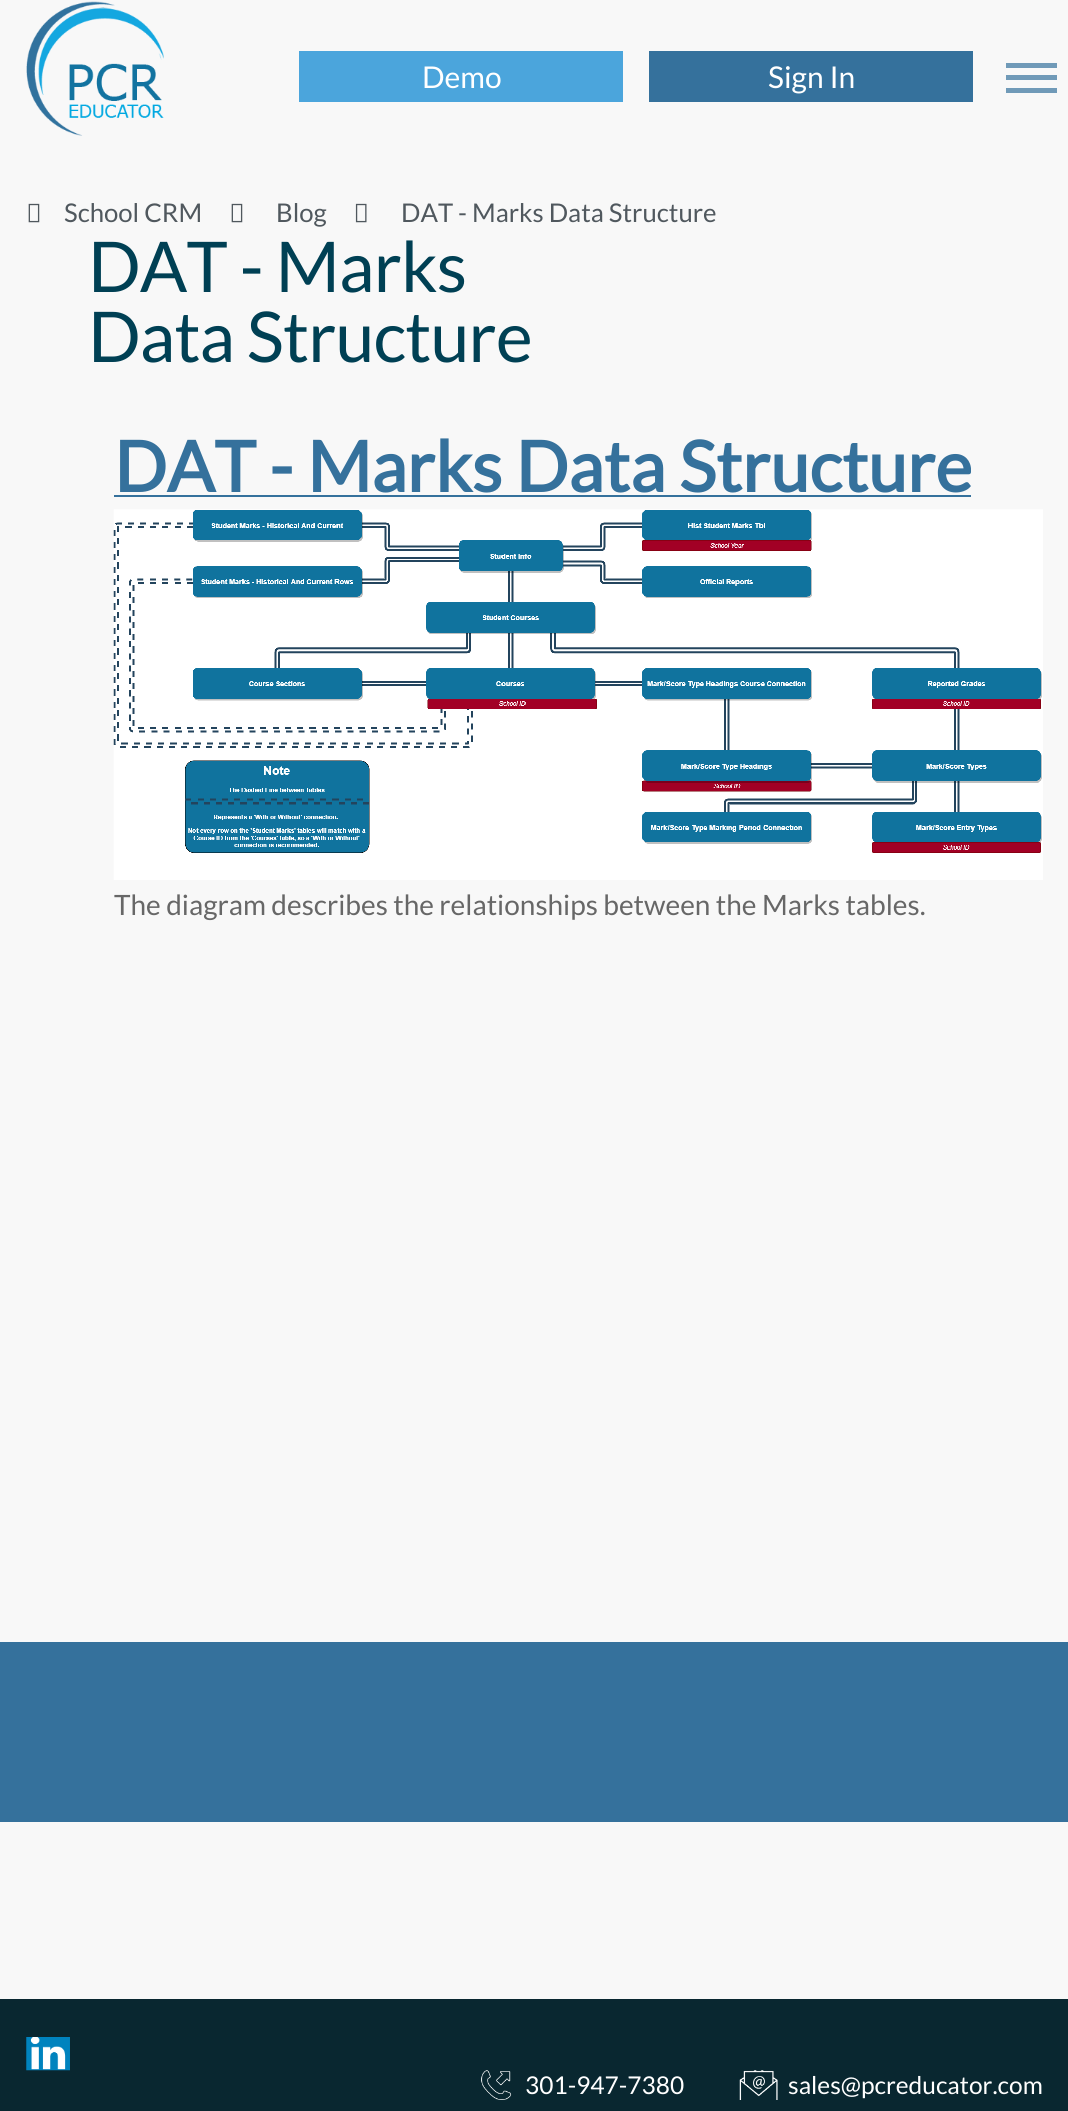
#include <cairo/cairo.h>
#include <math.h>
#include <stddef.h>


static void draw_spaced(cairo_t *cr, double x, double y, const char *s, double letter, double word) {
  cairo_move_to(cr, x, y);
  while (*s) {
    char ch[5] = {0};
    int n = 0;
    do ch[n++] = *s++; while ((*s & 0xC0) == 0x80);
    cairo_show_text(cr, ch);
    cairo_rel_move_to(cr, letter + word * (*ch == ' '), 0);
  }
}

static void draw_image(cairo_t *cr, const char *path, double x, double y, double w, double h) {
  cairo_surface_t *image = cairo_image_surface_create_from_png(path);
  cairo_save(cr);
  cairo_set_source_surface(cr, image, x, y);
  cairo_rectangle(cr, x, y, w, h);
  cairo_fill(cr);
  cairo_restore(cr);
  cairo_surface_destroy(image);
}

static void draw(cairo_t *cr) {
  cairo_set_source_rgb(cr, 248 / 255.0, 248 / 255.0, 248 / 255.0);
  cairo_paint(cr);
  draw_image(cr, "images/1.png", 26, 1, 138, 135);
  cairo_set_source_rgb(cr, 75 / 255.0, 165 / 255.0, 220 / 255.0);
  cairo_rectangle(cr, 299, 51, 324, 51);
  cairo_fill(cr);
  cairo_set_source_rgb(cr, 53 / 255.0, 113 / 255.0, 156 / 255.0);
  cairo_rectangle(cr, 649, 51, 324, 51);
  cairo_fill(cr);
  cairo_set_source_rgb(cr, 112 / 255.0, 154 / 255.0, 184 / 255.0);
  cairo_rectangle(cr, 1006, 88, 51, 5);
  cairo_fill(cr);
  cairo_rectangle(cr, 1006, 75, 51, 5);
  cairo_fill(cr);
  cairo_rectangle(cr, 1006, 63, 51, 5);
  cairo_fill(cr);
  draw_image(cr, "images/2.png", 28, 203, 12, 20);
  draw_image(cr, "images/2.png", 231, 203, 12, 20);
  draw_image(cr, "images/3.png", 355, 203, 12, 20);
  cairo_set_source_rgb(cr, 53 / 255.0, 113 / 255.0, 156 / 255.0);
  cairo_rectangle(cr, 114, 495, 857, 2);
  cairo_fill(cr);
  draw_image(cr, "images/4.png", 113, 509, 930, 371);
  cairo_rectangle(cr, 0, 1642, 1068, 180);
  cairo_fill(cr);
  cairo_set_source_rgb(cr, 9 / 255.0, 39 / 255.0, 48 / 255.0);
  cairo_rectangle(cr, 0, 1999, 1068, 112);
  cairo_fill(cr);
  draw_image(cr, "images/5.png", 26, 2037, 44, 34);
  draw_image(cr, "images/6.png", 481, 2070, 31, 30);
  draw_image(cr, "images/7.png", 739, 2070, 39, 30);
  cairo_select_font_face(cr, "Lato", CAIRO_FONT_SLANT_NORMAL, CAIRO_FONT_WEIGHT_NORMAL);
  cairo_set_font_size(cr, 30);
  cairo_set_source_rgb(cr, 1, 1, 1);
  cairo_move_to(cr, 422, 88);
  cairo_show_text(cr, "Demo");
  cairo_move_to(cr, 768, 88);
  cairo_show_text(cr, "Sign In");
  cairo_set_font_size(cr, 25.75);
  cairo_set_source_rgb(cr, 80 / 255.0, 88 / 255.0, 94 / 255.0);
  cairo_move_to(cr, 64, 222);
  cairo_show_text(cr, "School CRM");
  cairo_move_to(cr, 276, 222);
  cairo_show_text(cr, "Blog");
  cairo_move_to(cr, 401, 222);
  cairo_show_text(cr, "DAT - Marks Data Structure");
  cairo_set_font_size(cr, 70);
  cairo_set_source_rgb(cr, 0, 64 / 255.0, 84 / 255.0);
  draw_spaced(cr, 88, 292, "DAT - Marks", -0.9, 0);
  draw_spaced(cr, 88, 362, "Data Structure", -0.9, 0);
  cairo_select_font_face(cr, "Lato", CAIRO_FONT_SLANT_NORMAL, CAIRO_FONT_WEIGHT_BOLD);
  cairo_set_source_rgb(cr, 53 / 255.0, 113 / 255.0, 156 / 255.0);
  cairo_move_to(cr, 114, 492);
  cairo_show_text(cr, "DAT - Marks Data Structure");
  cairo_select_font_face(cr, "Lato", CAIRO_FONT_SLANT_NORMAL, CAIRO_FONT_WEIGHT_NORMAL);
  cairo_set_font_size(cr, 28);
  cairo_set_source_rgb(cr, 103 / 255.0, 103 / 255.0, 103 / 255.0);
  cairo_move_to(cr, 114, 915);
  cairo_show_text(cr, "The diagram describes the relationships between the Marks tables.");
  cairo_set_font_size(cr, 24.5);
  cairo_set_source_rgb(cr, 1, 1, 1);
  cairo_move_to(cr, 525, 2094);
  cairo_show_text(cr, "301-947-7380");
  cairo_move_to(cr, 788, 2094);
  cairo_show_text(cr, "sales@pcreducator.com");
}

int main(void) {
  cairo_surface_t *surface = cairo_image_surface_create(CAIRO_FORMAT_RGB24, 1068, 2111);
  cairo_t *cr = cairo_create(surface);
  cairo_font_options_t *options = cairo_font_options_create();
  cairo_font_options_set_hint_metrics(options, CAIRO_HINT_METRICS_OFF);
  cairo_font_options_set_hint_style(options, CAIRO_HINT_STYLE_NONE);
  cairo_set_font_options(cr, options);
  cairo_set_miter_limit(cr, 4);
  draw(cr);
  cairo_surface_write_to_png(surface, "out.png");
  cairo_font_options_destroy(options);
  cairo_destroy(cr);
  cairo_surface_destroy(surface);
  return 0;
}
